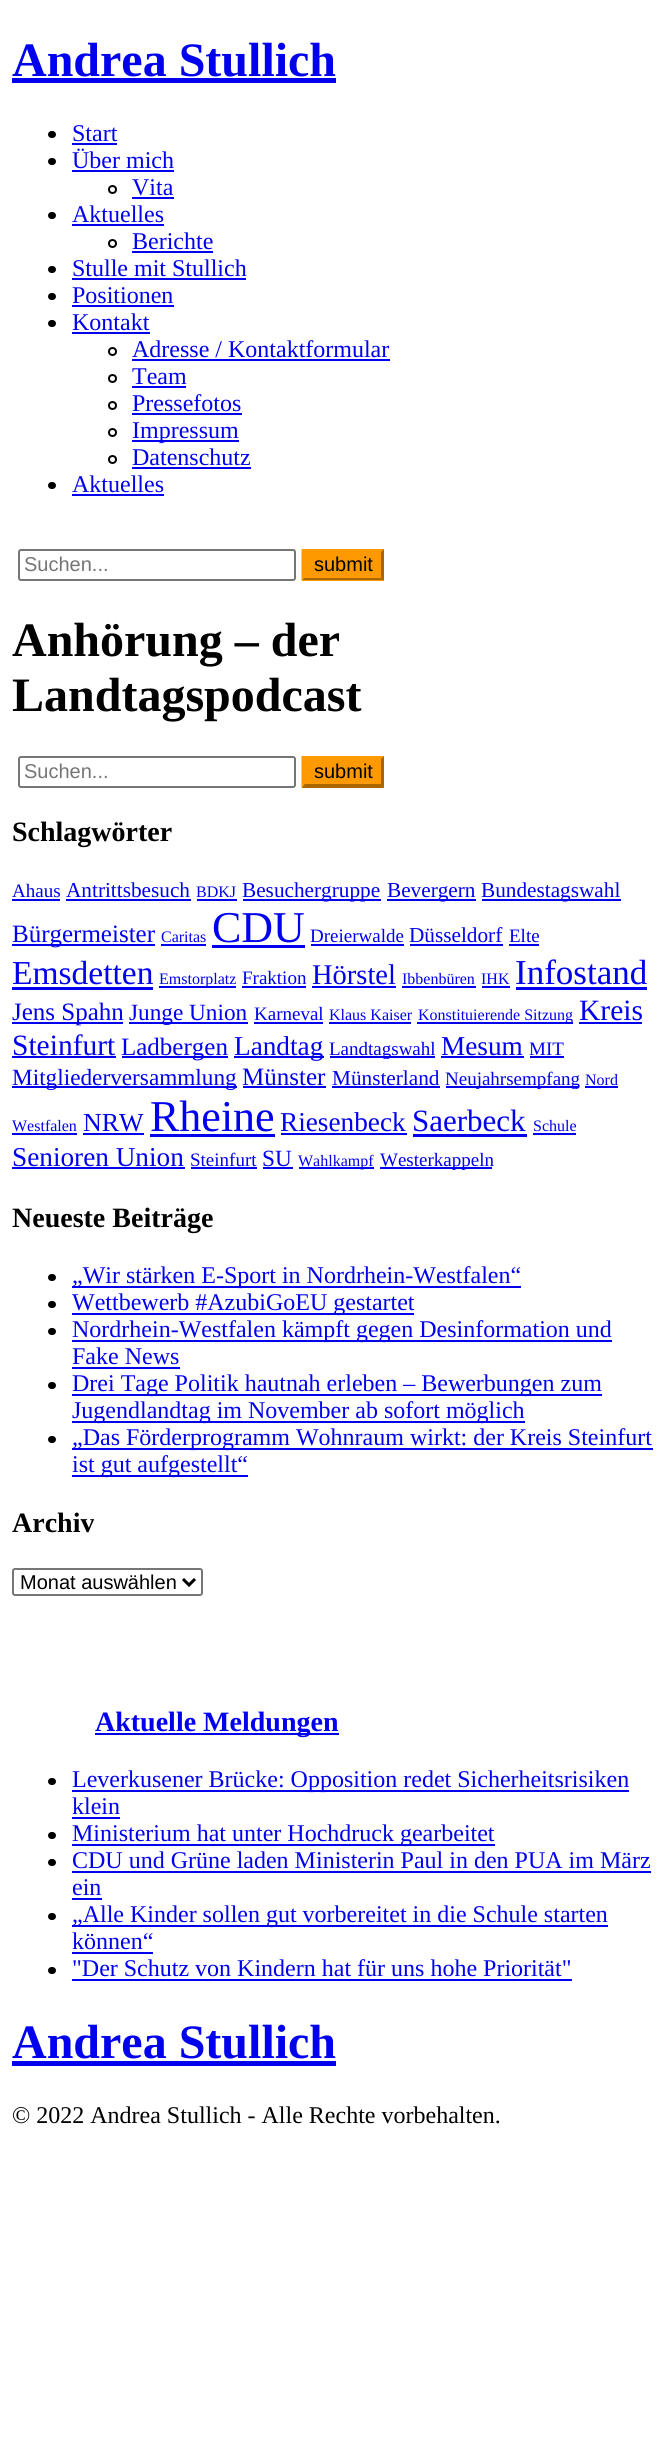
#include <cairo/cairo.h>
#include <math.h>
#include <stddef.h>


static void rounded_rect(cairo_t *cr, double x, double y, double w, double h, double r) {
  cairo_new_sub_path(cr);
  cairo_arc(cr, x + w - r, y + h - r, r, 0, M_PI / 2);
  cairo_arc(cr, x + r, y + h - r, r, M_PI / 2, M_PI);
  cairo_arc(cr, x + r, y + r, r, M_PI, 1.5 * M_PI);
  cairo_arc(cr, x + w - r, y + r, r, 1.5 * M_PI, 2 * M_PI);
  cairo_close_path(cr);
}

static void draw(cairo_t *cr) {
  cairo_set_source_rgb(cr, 1, 1, 1);
  cairo_paint(cr);
  cairo_set_source_rgb(cr, 0, 0, 238 / 255.0);
  cairo_rectangle(cr, 12, 78, 324, 5);
  cairo_fill(cr);
  cairo_set_source_rgb(cr, 0, 0, 0);
  rounded_rect(cr, 48, 131, 8, 7, 3.5);
  cairo_fill(cr);
  cairo_set_source_rgb(cr, 0, 0, 238 / 255.0);
  cairo_rectangle(cr, 72, 143, 45, 2);
  cairo_fill(cr);
  cairo_set_source_rgb(cr, 0, 0, 0);
  rounded_rect(cr, 48, 158, 8, 7, 3.5);
  cairo_fill(cr);
  cairo_set_source_rgb(cr, 0, 0, 238 / 255.0);
  cairo_rectangle(cr, 72, 170, 102, 2);
  cairo_fill(cr);
  cairo_arc(cr, 112.5, 189.5, 3.5, 0, 2 * M_PI);
  cairo_set_source_rgb(cr, 0, 0, 0);
  cairo_stroke(cr);
  cairo_set_source_rgb(cr, 0, 0, 238 / 255.0);
  cairo_rectangle(cr, 132, 197, 42, 2);
  cairo_fill(cr);
  cairo_set_source_rgb(cr, 0, 0, 0);
  rounded_rect(cr, 48, 212, 8, 7, 3.5);
  cairo_fill(cr);
  cairo_set_source_rgb(cr, 0, 0, 238 / 255.0);
  cairo_rectangle(cr, 72, 224, 92, 2);
  cairo_fill(cr);
  cairo_arc(cr, 112.5, 243.5, 3.5, 0, 2 * M_PI);
  cairo_set_source_rgb(cr, 0, 0, 0);
  cairo_stroke(cr);
  cairo_set_source_rgb(cr, 0, 0, 238 / 255.0);
  cairo_rectangle(cr, 132, 251, 81, 2);
  cairo_fill(cr);
  cairo_set_source_rgb(cr, 0, 0, 0);
  rounded_rect(cr, 48, 266, 8, 7, 3.5);
  cairo_fill(cr);
  cairo_set_source_rgb(cr, 0, 0, 238 / 255.0);
  cairo_rectangle(cr, 72, 278, 174, 2);
  cairo_fill(cr);
  cairo_set_source_rgb(cr, 0, 0, 0);
  rounded_rect(cr, 48, 293, 8, 7, 3.5);
  cairo_fill(cr);
  cairo_set_source_rgb(cr, 0, 0, 238 / 255.0);
  cairo_rectangle(cr, 72, 305, 102, 2);
  cairo_fill(cr);
  cairo_set_source_rgb(cr, 0, 0, 0);
  rounded_rect(cr, 48, 320, 8, 7, 3.5);
  cairo_fill(cr);
  cairo_set_source_rgb(cr, 0, 0, 238 / 255.0);
  cairo_rectangle(cr, 72, 332, 78, 2);
  cairo_fill(cr);
  cairo_arc(cr, 112.5, 351.5, 3.5, 0, 2 * M_PI);
  cairo_set_source_rgb(cr, 0, 0, 0);
  cairo_stroke(cr);
  cairo_set_source_rgb(cr, 0, 0, 238 / 255.0);
  cairo_rectangle(cr, 132, 359, 258, 2);
  cairo_fill(cr);
  cairo_arc(cr, 112.5, 378.5, 3.5, 0, 2 * M_PI);
  cairo_set_source_rgb(cr, 0, 0, 0);
  cairo_stroke(cr);
  cairo_set_source_rgb(cr, 0, 0, 238 / 255.0);
  cairo_rectangle(cr, 132, 386, 54, 2);
  cairo_fill(cr);
  cairo_arc(cr, 112.5, 405.5, 3.5, 0, 2 * M_PI);
  cairo_set_source_rgb(cr, 0, 0, 0);
  cairo_stroke(cr);
  cairo_set_source_rgb(cr, 0, 0, 238 / 255.0);
  cairo_rectangle(cr, 132, 413, 110, 2);
  cairo_fill(cr);
  cairo_arc(cr, 112.5, 432.5, 3.5, 0, 2 * M_PI);
  cairo_set_source_rgb(cr, 0, 0, 0);
  cairo_stroke(cr);
  cairo_set_source_rgb(cr, 0, 0, 238 / 255.0);
  cairo_rectangle(cr, 132, 440, 107, 2);
  cairo_fill(cr);
  cairo_arc(cr, 112.5, 459.5, 3.5, 0, 2 * M_PI);
  cairo_set_source_rgb(cr, 0, 0, 0);
  cairo_stroke(cr);
  cairo_set_source_rgb(cr, 0, 0, 238 / 255.0);
  cairo_rectangle(cr, 132, 467, 119, 2);
  cairo_fill(cr);
  cairo_set_source_rgb(cr, 0, 0, 0);
  rounded_rect(cr, 48, 482, 8, 7, 3.5);
  cairo_fill(cr);
  cairo_set_source_rgb(cr, 0, 0, 238 / 255.0);
  cairo_rectangle(cr, 72, 494, 92, 2);
  cairo_fill(cr);
  rounded_rect(cr, 19, 550, 276, 30, 2);
  cairo_set_source_rgb(cr, 118 / 255.0, 118 / 255.0, 118 / 255.0);
  cairo_stroke(cr);
  cairo_set_source_rgb(cr, 1, 153 / 255.0, 0);
  cairo_rectangle(cr, 302, 549, 82, 32);
  cairo_fill(cr);
  cairo_set_source_rgb(cr, 170 / 255.0, 102 / 255.0, 0);
  cairo_new_path(cr);
  cairo_move_to(cr, 384, 549);
  cairo_line_to(cr, 384, 580.5);
  cairo_line_to(cr, 381, 577.5);
  cairo_line_to(cr, 381, 552);
  cairo_close_path(cr);
  cairo_fill(cr);
  cairo_new_path(cr);
  cairo_move_to(cr, 384, 580);
  cairo_line_to(cr, 302, 580);
  cairo_line_to(cr, 304, 578);
  cairo_line_to(cr, 381, 578);
  cairo_close_path(cr);
  cairo_fill(cr);
  cairo_set_source_rgb(cr, 1, 153 / 255.0, 0);
  cairo_new_path(cr);
  cairo_move_to(cr, 301.5, 580.5);
  cairo_line_to(cr, 301.5, 549);
  cairo_line_to(cr, 304.5, 552);
  cairo_line_to(cr, 304.5, 577.5);
  cairo_close_path(cr);
  cairo_fill(cr);
  rounded_rect(cr, 19, 757, 276, 30, 2);
  cairo_set_source_rgb(cr, 118 / 255.0, 118 / 255.0, 118 / 255.0);
  cairo_stroke(cr);
  cairo_set_source_rgb(cr, 1, 153 / 255.0, 0);
  cairo_rectangle(cr, 302, 756, 82, 32);
  cairo_fill(cr);
  cairo_set_source_rgb(cr, 170 / 255.0, 102 / 255.0, 0);
  cairo_new_path(cr);
  cairo_move_to(cr, 384, 756);
  cairo_line_to(cr, 384, 787.5);
  cairo_line_to(cr, 381, 784.5);
  cairo_line_to(cr, 381, 759);
  cairo_close_path(cr);
  cairo_fill(cr);
  cairo_new_path(cr);
  cairo_move_to(cr, 384, 788);
  cairo_line_to(cr, 302, 788);
  cairo_line_to(cr, 304, 784);
  cairo_line_to(cr, 381, 784);
  cairo_close_path(cr);
  cairo_fill(cr);
  cairo_set_source_rgb(cr, 1, 153 / 255.0, 0);
  cairo_new_path(cr);
  cairo_move_to(cr, 301.5, 787.5);
  cairo_line_to(cr, 301.5, 756);
  cairo_line_to(cr, 304.5, 759);
  cairo_line_to(cr, 304.5, 784.5);
  cairo_close_path(cr);
  cairo_fill(cr);
  cairo_set_source_rgb(cr, 0, 0, 238 / 255.0);
  cairo_rectangle(cr, 12, 899, 48, 2);
  cairo_fill(cr);
  cairo_rectangle(cr, 66, 899, 125, 2);
  cairo_fill(cr);
  cairo_rectangle(cr, 197, 899, 40, 2);
  cairo_fill(cr);
  cairo_rectangle(cr, 243, 899, 138, 2);
  cairo_fill(cr);
  cairo_rectangle(cr, 387, 899, 89, 2);
  cairo_fill(cr);
  cairo_rectangle(cr, 482, 899, 139, 2);
  cairo_fill(cr);
  cairo_rectangle(cr, 12, 944, 143, 2);
  cairo_fill(cr);
  cairo_rectangle(cr, 161, 944, 45, 2);
  cairo_fill(cr);
  cairo_rectangle(cr, 212, 945, 93, 3);
  cairo_fill(cr);
  cairo_rectangle(cr, 311, 944, 93, 2);
  cairo_fill(cr);
  cairo_rectangle(cr, 410, 944, 93, 2);
  cairo_fill(cr);
  cairo_rectangle(cr, 509, 944, 30, 2);
  cairo_fill(cr);
  cairo_rectangle(cr, 12, 987, 141, 3);
  cairo_fill(cr);
  cairo_rectangle(cr, 159, 986, 77, 2);
  cairo_fill(cr);
  cairo_rectangle(cr, 242, 986, 64, 2);
  cairo_fill(cr);
  cairo_rectangle(cr, 312, 986, 84, 2);
  cairo_fill(cr);
  cairo_rectangle(cr, 402, 986, 74, 2);
  cairo_fill(cr);
  cairo_rectangle(cr, 482, 986, 28, 2);
  cairo_fill(cr);
  cairo_rectangle(cr, 516, 987, 131, 3);
  cairo_fill(cr);
  cairo_rectangle(cr, 12, 1022, 111, 2);
  cairo_fill(cr);
  cairo_rectangle(cr, 129, 1022, 119, 2);
  cairo_fill(cr);
  cairo_rectangle(cr, 254, 1022, 69, 2);
  cairo_fill(cr);
  cairo_rectangle(cr, 329, 1022, 82, 2);
  cairo_fill(cr);
  cairo_rectangle(cr, 417, 1022, 156, 2);
  cairo_fill(cr);
  cairo_rectangle(cr, 579, 1022, 63, 2);
  cairo_fill(cr);
  cairo_rectangle(cr, 12, 1056, 104, 2);
  cairo_fill(cr);
  cairo_rectangle(cr, 122, 1056, 106, 2);
  cairo_fill(cr);
  cairo_rectangle(cr, 234, 1056, 90, 2);
  cairo_fill(cr);
  cairo_rectangle(cr, 330, 1056, 105, 2);
  cairo_fill(cr);
  cairo_rectangle(cr, 441, 1056, 83, 2);
  cairo_fill(cr);
  cairo_rectangle(cr, 530, 1056, 34, 2);
  cairo_fill(cr);
  cairo_rectangle(cr, 12, 1086, 225, 2);
  cairo_fill(cr);
  cairo_rectangle(cr, 243, 1086, 83, 2);
  cairo_fill(cr);
  cairo_rectangle(cr, 332, 1086, 108, 2);
  cairo_fill(cr);
  cairo_rectangle(cr, 446, 1086, 133, 2);
  cairo_fill(cr);
  cairo_rectangle(cr, 585, 1086, 33, 2);
  cairo_fill(cr);
  cairo_rectangle(cr, 12, 1133, 65, 2);
  cairo_fill(cr);
  cairo_rectangle(cr, 83, 1133, 61, 2);
  cairo_fill(cr);
  cairo_rectangle(cr, 150, 1134, 125, 3);
  cairo_fill(cr);
  cairo_rectangle(cr, 281, 1133, 126, 2);
  cairo_fill(cr);
  cairo_rectangle(cr, 413, 1134, 114, 3);
  cairo_fill(cr);
  cairo_rectangle(cr, 533, 1133, 43, 2);
  cairo_fill(cr);
  cairo_rectangle(cr, 12, 1167, 173, 2);
  cairo_fill(cr);
  cairo_rectangle(cr, 191, 1167, 66, 2);
  cairo_fill(cr);
  cairo_rectangle(cr, 263, 1167, 30, 2);
  cairo_fill(cr);
  cairo_rectangle(cr, 299, 1167, 75, 2);
  cairo_fill(cr);
  cairo_rectangle(cr, 380, 1167, 112, 2);
  cairo_fill(cr);
  cairo_set_source_rgb(cr, 0, 0, 0);
  rounded_rect(cr, 48, 1274, 8, 7, 3.5);
  cairo_fill(cr);
  cairo_set_source_rgb(cr, 0, 0, 238 / 255.0);
  cairo_rectangle(cr, 72, 1286, 449, 2);
  cairo_fill(cr);
  cairo_set_source_rgb(cr, 0, 0, 0);
  rounded_rect(cr, 48, 1301, 8, 7, 3.5);
  cairo_fill(cr);
  cairo_set_source_rgb(cr, 0, 0, 238 / 255.0);
  cairo_rectangle(cr, 72, 1313, 342, 2);
  cairo_fill(cr);
  cairo_set_source_rgb(cr, 0, 0, 0);
  rounded_rect(cr, 48, 1328, 8, 7, 3.5);
  cairo_fill(cr);
  cairo_set_source_rgb(cr, 0, 0, 238 / 255.0);
  cairo_rectangle(cr, 72, 1340, 540, 2);
  cairo_fill(cr);
  cairo_rectangle(cr, 72, 1367, 108, 2);
  cairo_fill(cr);
  cairo_set_source_rgb(cr, 0, 0, 0);
  rounded_rect(cr, 48, 1382, 8, 7, 3.5);
  cairo_fill(cr);
  cairo_set_source_rgb(cr, 0, 0, 238 / 255.0);
  cairo_rectangle(cr, 72, 1394, 530, 2);
  cairo_fill(cr);
  cairo_rectangle(cr, 72, 1421, 453, 2);
  cairo_fill(cr);
  cairo_set_source_rgb(cr, 0, 0, 0);
  rounded_rect(cr, 48, 1436, 8, 7, 3.5);
  cairo_fill(cr);
  cairo_set_source_rgb(cr, 0, 0, 238 / 255.0);
  cairo_rectangle(cr, 72, 1448, 581, 2);
  cairo_fill(cr);
  cairo_rectangle(cr, 72, 1475, 176, 2);
  cairo_fill(cr);
  rounded_rect(cr, 13, 1569, 189, 26, 2);
  cairo_set_source_rgb(cr, 118 / 255.0, 118 / 255.0, 118 / 255.0);
  cairo_stroke(cr);
  cairo_new_path(cr);
  cairo_move_to(cr, 183, 1579);
  cairo_line_to(cr, 189, 1585);
  cairo_line_to(cr, 195, 1579);
  cairo_set_source_rgb(cr, 0, 0, 0);
  cairo_set_line_width(cr, 3);
  cairo_stroke(cr);
  cairo_set_source_rgb(cr, 0, 0, 238 / 255.0);
  cairo_rectangle(cr, 95, 1733, 244, 2);
  cairo_fill(cr);
  cairo_set_source_rgb(cr, 0, 0, 0);
  rounded_rect(cr, 48, 1778, 8, 7, 3.5);
  cairo_fill(cr);
  cairo_set_source_rgb(cr, 0, 0, 238 / 255.0);
  cairo_rectangle(cr, 72, 1790, 557, 2);
  cairo_fill(cr);
  cairo_rectangle(cr, 72, 1817, 48, 2);
  cairo_fill(cr);
  cairo_set_source_rgb(cr, 0, 0, 0);
  rounded_rect(cr, 48, 1832, 8, 7, 3.5);
  cairo_fill(cr);
  cairo_set_source_rgb(cr, 0, 0, 238 / 255.0);
  cairo_rectangle(cr, 72, 1844, 423, 2);
  cairo_fill(cr);
  cairo_set_source_rgb(cr, 0, 0, 0);
  rounded_rect(cr, 48, 1859, 8, 7, 3.5);
  cairo_fill(cr);
  cairo_set_source_rgb(cr, 0, 0, 238 / 255.0);
  cairo_rectangle(cr, 72, 1871, 579, 2);
  cairo_fill(cr);
  cairo_rectangle(cr, 72, 1898, 30, 2);
  cairo_fill(cr);
  cairo_set_source_rgb(cr, 0, 0, 0);
  rounded_rect(cr, 48, 1913, 8, 7, 3.5);
  cairo_fill(cr);
  cairo_set_source_rgb(cr, 0, 0, 238 / 255.0);
  cairo_rectangle(cr, 72, 1925, 536, 2);
  cairo_fill(cr);
  cairo_rectangle(cr, 72, 1952, 81, 2);
  cairo_fill(cr);
  cairo_set_source_rgb(cr, 0, 0, 0);
  rounded_rect(cr, 48, 1967, 8, 7, 3.5);
  cairo_fill(cr);
  cairo_set_source_rgb(cr, 0, 0, 238 / 255.0);
  cairo_rectangle(cr, 72, 1979, 500, 2);
  cairo_fill(cr);
  cairo_rectangle(cr, 12, 2061, 324, 5);
  cairo_fill(cr);
  cairo_select_font_face(cr, "Liberation Serif", CAIRO_FONT_SLANT_NORMAL, CAIRO_FONT_WEIGHT_BOLD);
  cairo_set_font_size(cr, 48);
  cairo_move_to(cr, 12, 76);
  cairo_show_text(cr, "Andrea Stullich");
  cairo_select_font_face(cr, "Liberation Serif", CAIRO_FONT_SLANT_NORMAL, CAIRO_FONT_WEIGHT_NORMAL);
  cairo_set_font_size(cr, 24);
  cairo_move_to(cr, 72, 141);
  cairo_show_text(cr, "Start");
  cairo_move_to(cr, 72, 168);
  cairo_show_text(cr, "Über mich");
  cairo_move_to(cr, 132, 195);
  cairo_show_text(cr, "Vita");
  cairo_move_to(cr, 72, 222);
  cairo_show_text(cr, "Aktuelles");
  cairo_move_to(cr, 132, 249);
  cairo_show_text(cr, "Berichte");
  cairo_move_to(cr, 72, 276);
  cairo_show_text(cr, "Stulle mit Stullich");
  cairo_move_to(cr, 72, 303);
  cairo_show_text(cr, "Positionen");
  cairo_move_to(cr, 72, 330);
  cairo_show_text(cr, "Kontakt");
  cairo_move_to(cr, 132, 357);
  cairo_show_text(cr, "Adresse / Kontaktformular");
  cairo_move_to(cr, 132, 384);
  cairo_show_text(cr, "Team");
  cairo_move_to(cr, 132, 411);
  cairo_show_text(cr, "Pressefotos");
  cairo_move_to(cr, 132, 438);
  cairo_show_text(cr, "Impressum");
  cairo_move_to(cr, 132, 465);
  cairo_show_text(cr, "Datenschutz");
  cairo_move_to(cr, 72, 492);
  cairo_show_text(cr, "Aktuelles");
  cairo_select_font_face(cr, "Liberation Sans", CAIRO_FONT_SLANT_NORMAL, CAIRO_FONT_WEIGHT_NORMAL);
  cairo_set_font_size(cr, 20);
  cairo_set_source_rgb(cr, 117 / 255.0, 117 / 255.0, 117 / 255.0);
  cairo_move_to(cr, 24, 571);
  cairo_show_text(cr, "Suchen...");
  cairo_set_source_rgb(cr, 0, 0, 0);
  cairo_move_to(cr, 314, 571);
  cairo_show_text(cr, "submit");
  cairo_select_font_face(cr, "Liberation Serif", CAIRO_FONT_SLANT_NORMAL, CAIRO_FONT_WEIGHT_BOLD);
  cairo_set_font_size(cr, 48);
  cairo_move_to(cr, 12, 656);
  cairo_show_text(cr, "Anhörung – der");
  cairo_move_to(cr, 12, 711);
  cairo_show_text(cr, "Landtagspodcast");
  cairo_select_font_face(cr, "Liberation Sans", CAIRO_FONT_SLANT_NORMAL, CAIRO_FONT_WEIGHT_NORMAL);
  cairo_set_font_size(cr, 20);
  cairo_set_source_rgb(cr, 117 / 255.0, 117 / 255.0, 117 / 255.0);
  cairo_move_to(cr, 24, 778);
  cairo_show_text(cr, "Suchen...");
  cairo_set_source_rgb(cr, 0, 0, 0);
  cairo_move_to(cr, 314, 778);
  cairo_show_text(cr, "submit");
  cairo_select_font_face(cr, "Liberation Serif", CAIRO_FONT_SLANT_NORMAL, CAIRO_FONT_WEIGHT_BOLD);
  cairo_set_font_size(cr, 28);
  cairo_move_to(cr, 12, 841);
  cairo_show_text(cr, "Schlagwörter");
  cairo_select_font_face(cr, "Liberation Serif", CAIRO_FONT_SLANT_NORMAL, CAIRO_FONT_WEIGHT_NORMAL);
  cairo_set_font_size(cr, 19);
  cairo_set_source_rgb(cr, 0, 0, 238 / 255.0);
  cairo_move_to(cr, 12, 897);
  cairo_show_text(cr, "Ahaus");
  cairo_set_font_size(cr, 21.25);
  cairo_move_to(cr, 66, 897);
  cairo_show_text(cr, "Antrittsbesuch");
  cairo_set_font_size(cr, 16);
  cairo_move_to(cr, 196, 897);
  cairo_show_text(cr, "BDKJ");
  cairo_set_font_size(cr, 21.25);
  cairo_move_to(cr, 242, 897);
  cairo_show_text(cr, "Besuchergruppe");
  cairo_move_to(cr, 387, 897);
  cairo_show_text(cr, "Bevergern");
  cairo_move_to(cr, 481, 897);
  cairo_show_text(cr, "Bundestagswahl");
  cairo_set_font_size(cr, 25);
  cairo_move_to(cr, 12, 942);
  cairo_show_text(cr, "Bürgermeister");
  cairo_set_font_size(cr, 16);
  cairo_move_to(cr, 161, 942);
  cairo_show_text(cr, "Caritas");
  cairo_set_font_size(cr, 44);
  cairo_move_to(cr, 212, 942);
  cairo_show_text(cr, "CDU");
  cairo_set_font_size(cr, 19);
  cairo_move_to(cr, 310, 942);
  cairo_show_text(cr, "Dreierwalde");
  cairo_set_font_size(cr, 21.25);
  cairo_move_to(cr, 409, 942);
  cairo_show_text(cr, "Düsseldorf");
  cairo_set_font_size(cr, 19);
  cairo_move_to(cr, 509, 942);
  cairo_show_text(cr, "Elte");
  cairo_set_font_size(cr, 33.5);
  cairo_move_to(cr, 12, 984);
  cairo_show_text(cr, "Emsdetten");
  cairo_set_font_size(cr, 16);
  cairo_move_to(cr, 159, 984);
  cairo_show_text(cr, "Emstorplatz");
  cairo_set_font_size(cr, 19);
  cairo_move_to(cr, 242, 984);
  cairo_show_text(cr, "Fraktion");
  cairo_set_font_size(cr, 28.5);
  cairo_move_to(cr, 312, 984);
  cairo_show_text(cr, "Hörstel");
  cairo_set_font_size(cr, 16);
  cairo_move_to(cr, 402, 984);
  cairo_show_text(cr, "Ibbenbüren");
  cairo_move_to(cr, 481, 984);
  cairo_show_text(cr, "IHK");
  cairo_set_font_size(cr, 35);
  cairo_move_to(cr, 515, 984);
  cairo_show_text(cr, "Infostand");
  cairo_set_font_size(cr, 25);
  cairo_move_to(cr, 12, 1020);
  cairo_show_text(cr, "Jens Spahn");
  cairo_set_font_size(cr, 23.25);
  cairo_move_to(cr, 129, 1020);
  cairo_show_text(cr, "Junge Union");
  cairo_set_font_size(cr, 19);
  cairo_move_to(cr, 254, 1020);
  cairo_show_text(cr, "Karneval");
  cairo_set_font_size(cr, 16);
  cairo_move_to(cr, 329, 1020);
  cairo_show_text(cr, "Klaus Kaiser");
  cairo_move_to(cr, 418, 1020);
  cairo_show_text(cr, "Konstituierende Sitzung");
  cairo_set_font_size(cr, 29.5);
  cairo_move_to(cr, 579, 1020);
  cairo_show_text(cr, "Kreis");
  cairo_move_to(cr, 12, 1055);
  cairo_show_text(cr, "Steinfurt");
  cairo_set_font_size(cr, 25);
  cairo_move_to(cr, 121, 1055);
  cairo_show_text(cr, "Ladbergen");
  cairo_set_font_size(cr, 27.25);
  cairo_move_to(cr, 234, 1055);
  cairo_show_text(cr, "Landtag");
  cairo_set_font_size(cr, 19);
  cairo_move_to(cr, 329, 1055);
  cairo_show_text(cr, "Landtagswahl");
  cairo_set_font_size(cr, 27.25);
  cairo_move_to(cr, 441, 1055);
  cairo_show_text(cr, "Mesum");
  cairo_set_font_size(cr, 19);
  cairo_move_to(cr, 529, 1055);
  cairo_show_text(cr, "MIT");
  cairo_set_font_size(cr, 23.25);
  cairo_move_to(cr, 12, 1085);
  cairo_show_text(cr, "Mitgliederversammlung");
  cairo_set_font_size(cr, 25);
  cairo_move_to(cr, 242, 1085);
  cairo_show_text(cr, "Münster");
  cairo_set_font_size(cr, 21.25);
  cairo_move_to(cr, 332, 1085);
  cairo_show_text(cr, "Münsterland");
  cairo_set_font_size(cr, 19);
  cairo_move_to(cr, 445, 1085);
  cairo_show_text(cr, "Neujahrsempfang");
  cairo_set_font_size(cr, 16);
  cairo_move_to(cr, 585, 1085);
  cairo_show_text(cr, "Nord");
  cairo_move_to(cr, 12, 1131);
  cairo_show_text(cr, "Westfalen");
  cairo_set_font_size(cr, 26);
  cairo_move_to(cr, 83, 1131);
  cairo_show_text(cr, "NRW");
  cairo_set_font_size(cr, 44);
  cairo_move_to(cr, 150, 1131);
  cairo_show_text(cr, "Rheine");
  cairo_set_font_size(cr, 27.25);
  cairo_move_to(cr, 280, 1131);
  cairo_show_text(cr, "Riesenbeck");
  cairo_set_font_size(cr, 31);
  cairo_move_to(cr, 412, 1131);
  cairo_show_text(cr, "Saerbeck");
  cairo_set_font_size(cr, 16);
  cairo_move_to(cr, 533, 1131);
  cairo_show_text(cr, "Schule");
  cairo_set_font_size(cr, 27.25);
  cairo_move_to(cr, 12, 1166);
  cairo_show_text(cr, "Senioren Union");
  cairo_set_font_size(cr, 19);
  cairo_move_to(cr, 190, 1166);
  cairo_show_text(cr, "Steinfurt");
  cairo_set_font_size(cr, 23.25);
  cairo_move_to(cr, 262, 1166);
  cairo_show_text(cr, "SU");
  cairo_set_font_size(cr, 16);
  cairo_move_to(cr, 298, 1166);
  cairo_show_text(cr, "Wahlkampf");
  cairo_set_font_size(cr, 19);
  cairo_move_to(cr, 380, 1166);
  cairo_show_text(cr, "Westerkappeln");
  cairo_select_font_face(cr, "Liberation Serif", CAIRO_FONT_SLANT_NORMAL, CAIRO_FONT_WEIGHT_BOLD);
  cairo_set_font_size(cr, 28);
  cairo_set_source_rgb(cr, 0, 0, 0);
  cairo_move_to(cr, 12, 1227);
  cairo_show_text(cr, "Neueste Beiträge");
  cairo_select_font_face(cr, "Liberation Serif", CAIRO_FONT_SLANT_NORMAL, CAIRO_FONT_WEIGHT_NORMAL);
  cairo_set_font_size(cr, 24);
  cairo_set_source_rgb(cr, 0, 0, 238 / 255.0);
  cairo_move_to(cr, 72, 1283);
  cairo_show_text(cr, "„Wir stärken E-Sport in Nordrhein-Westfalen“");
  cairo_move_to(cr, 72, 1310);
  cairo_show_text(cr, "Wettbewerb #AzubiGoEU gestartet");
  cairo_move_to(cr, 72, 1337);
  cairo_show_text(cr, "Nordrhein-Westfalen kämpft gegen Desinformation und");
  cairo_move_to(cr, 72, 1364);
  cairo_show_text(cr, "Fake News");
  cairo_move_to(cr, 72, 1391);
  cairo_show_text(cr, "Drei Tage Politik hautnah erleben – Bewerbungen zum");
  cairo_move_to(cr, 72, 1418);
  cairo_show_text(cr, "Jugendlandtag im November ab sofort möglich");
  cairo_move_to(cr, 72, 1445);
  cairo_show_text(cr, "„Das Förderprogramm Wohnraum wirkt: der Kreis Steinfurt");
  cairo_move_to(cr, 72, 1472);
  cairo_show_text(cr, "ist gut aufgestellt“");
  cairo_select_font_face(cr, "Liberation Serif", CAIRO_FONT_SLANT_NORMAL, CAIRO_FONT_WEIGHT_BOLD);
  cairo_set_font_size(cr, 28);
  cairo_set_source_rgb(cr, 0, 0, 0);
  cairo_move_to(cr, 12, 1532);
  cairo_show_text(cr, "Archiv");
  cairo_select_font_face(cr, "Liberation Sans", CAIRO_FONT_SLANT_NORMAL, CAIRO_FONT_WEIGHT_NORMAL);
  cairo_set_font_size(cr, 20);
  cairo_move_to(cr, 20, 1589);
  cairo_show_text(cr, "Monat auswählen");
  cairo_select_font_face(cr, "Liberation Serif", CAIRO_FONT_SLANT_NORMAL, CAIRO_FONT_WEIGHT_BOLD);
  cairo_set_font_size(cr, 28);
  cairo_set_source_rgb(cr, 0, 0, 238 / 255.0);
  cairo_move_to(cr, 95, 1731);
  cairo_show_text(cr, "Aktuelle Meldungen");
  cairo_select_font_face(cr, "Liberation Serif", CAIRO_FONT_SLANT_NORMAL, CAIRO_FONT_WEIGHT_NORMAL);
  cairo_set_font_size(cr, 24);
  cairo_move_to(cr, 72, 1787);
  cairo_show_text(cr, "Leverkusener Brücke: Opposition redet Sicherheitsrisiken");
  cairo_move_to(cr, 72, 1814);
  cairo_show_text(cr, "klein");
  cairo_move_to(cr, 72, 1841);
  cairo_show_text(cr, "Ministerium hat unter Hochdruck gearbeitet");
  cairo_move_to(cr, 72, 1868);
  cairo_show_text(cr, "CDU und Grüne laden Ministerin Paul in den PUA im März");
  cairo_move_to(cr, 72, 1895);
  cairo_show_text(cr, "ein");
  cairo_move_to(cr, 72, 1922);
  cairo_show_text(cr, "„Alle Kinder sollen gut vorbereitet in die Schule starten");
  cairo_move_to(cr, 72, 1949);
  cairo_show_text(cr, "können“");
  cairo_move_to(cr, 72, 1976);
  cairo_show_text(cr, "\"Der Schutz von Kindern hat für uns hohe Priorität\"");
  cairo_select_font_face(cr, "Liberation Serif", CAIRO_FONT_SLANT_NORMAL, CAIRO_FONT_WEIGHT_BOLD);
  cairo_set_font_size(cr, 48);
  cairo_move_to(cr, 12, 2058);
  cairo_show_text(cr, "Andrea Stullich");
  cairo_select_font_face(cr, "Liberation Serif", CAIRO_FONT_SLANT_NORMAL, CAIRO_FONT_WEIGHT_NORMAL);
  cairo_set_font_size(cr, 24);
  cairo_set_source_rgb(cr, 0, 0, 0);
  cairo_move_to(cr, 12, 2123);
  cairo_show_text(cr, "© 2022 Andrea Stullich - Alle Rechte vorbehalten.");
}

int main(void) {
  cairo_surface_t *surface = cairo_image_surface_create(CAIRO_FORMAT_RGB24, 666, 2440);
  cairo_t *cr = cairo_create(surface);
  cairo_font_options_t *options = cairo_font_options_create();
  cairo_font_options_set_hint_metrics(options, CAIRO_HINT_METRICS_OFF);
  cairo_font_options_set_hint_style(options, CAIRO_HINT_STYLE_NONE);
  cairo_set_font_options(cr, options);
  cairo_set_miter_limit(cr, 4);
  draw(cr);
  cairo_surface_write_to_png(surface, "out.png");
  cairo_font_options_destroy(options);
  cairo_destroy(cr);
  cairo_surface_destroy(surface);
  return 0;
}
